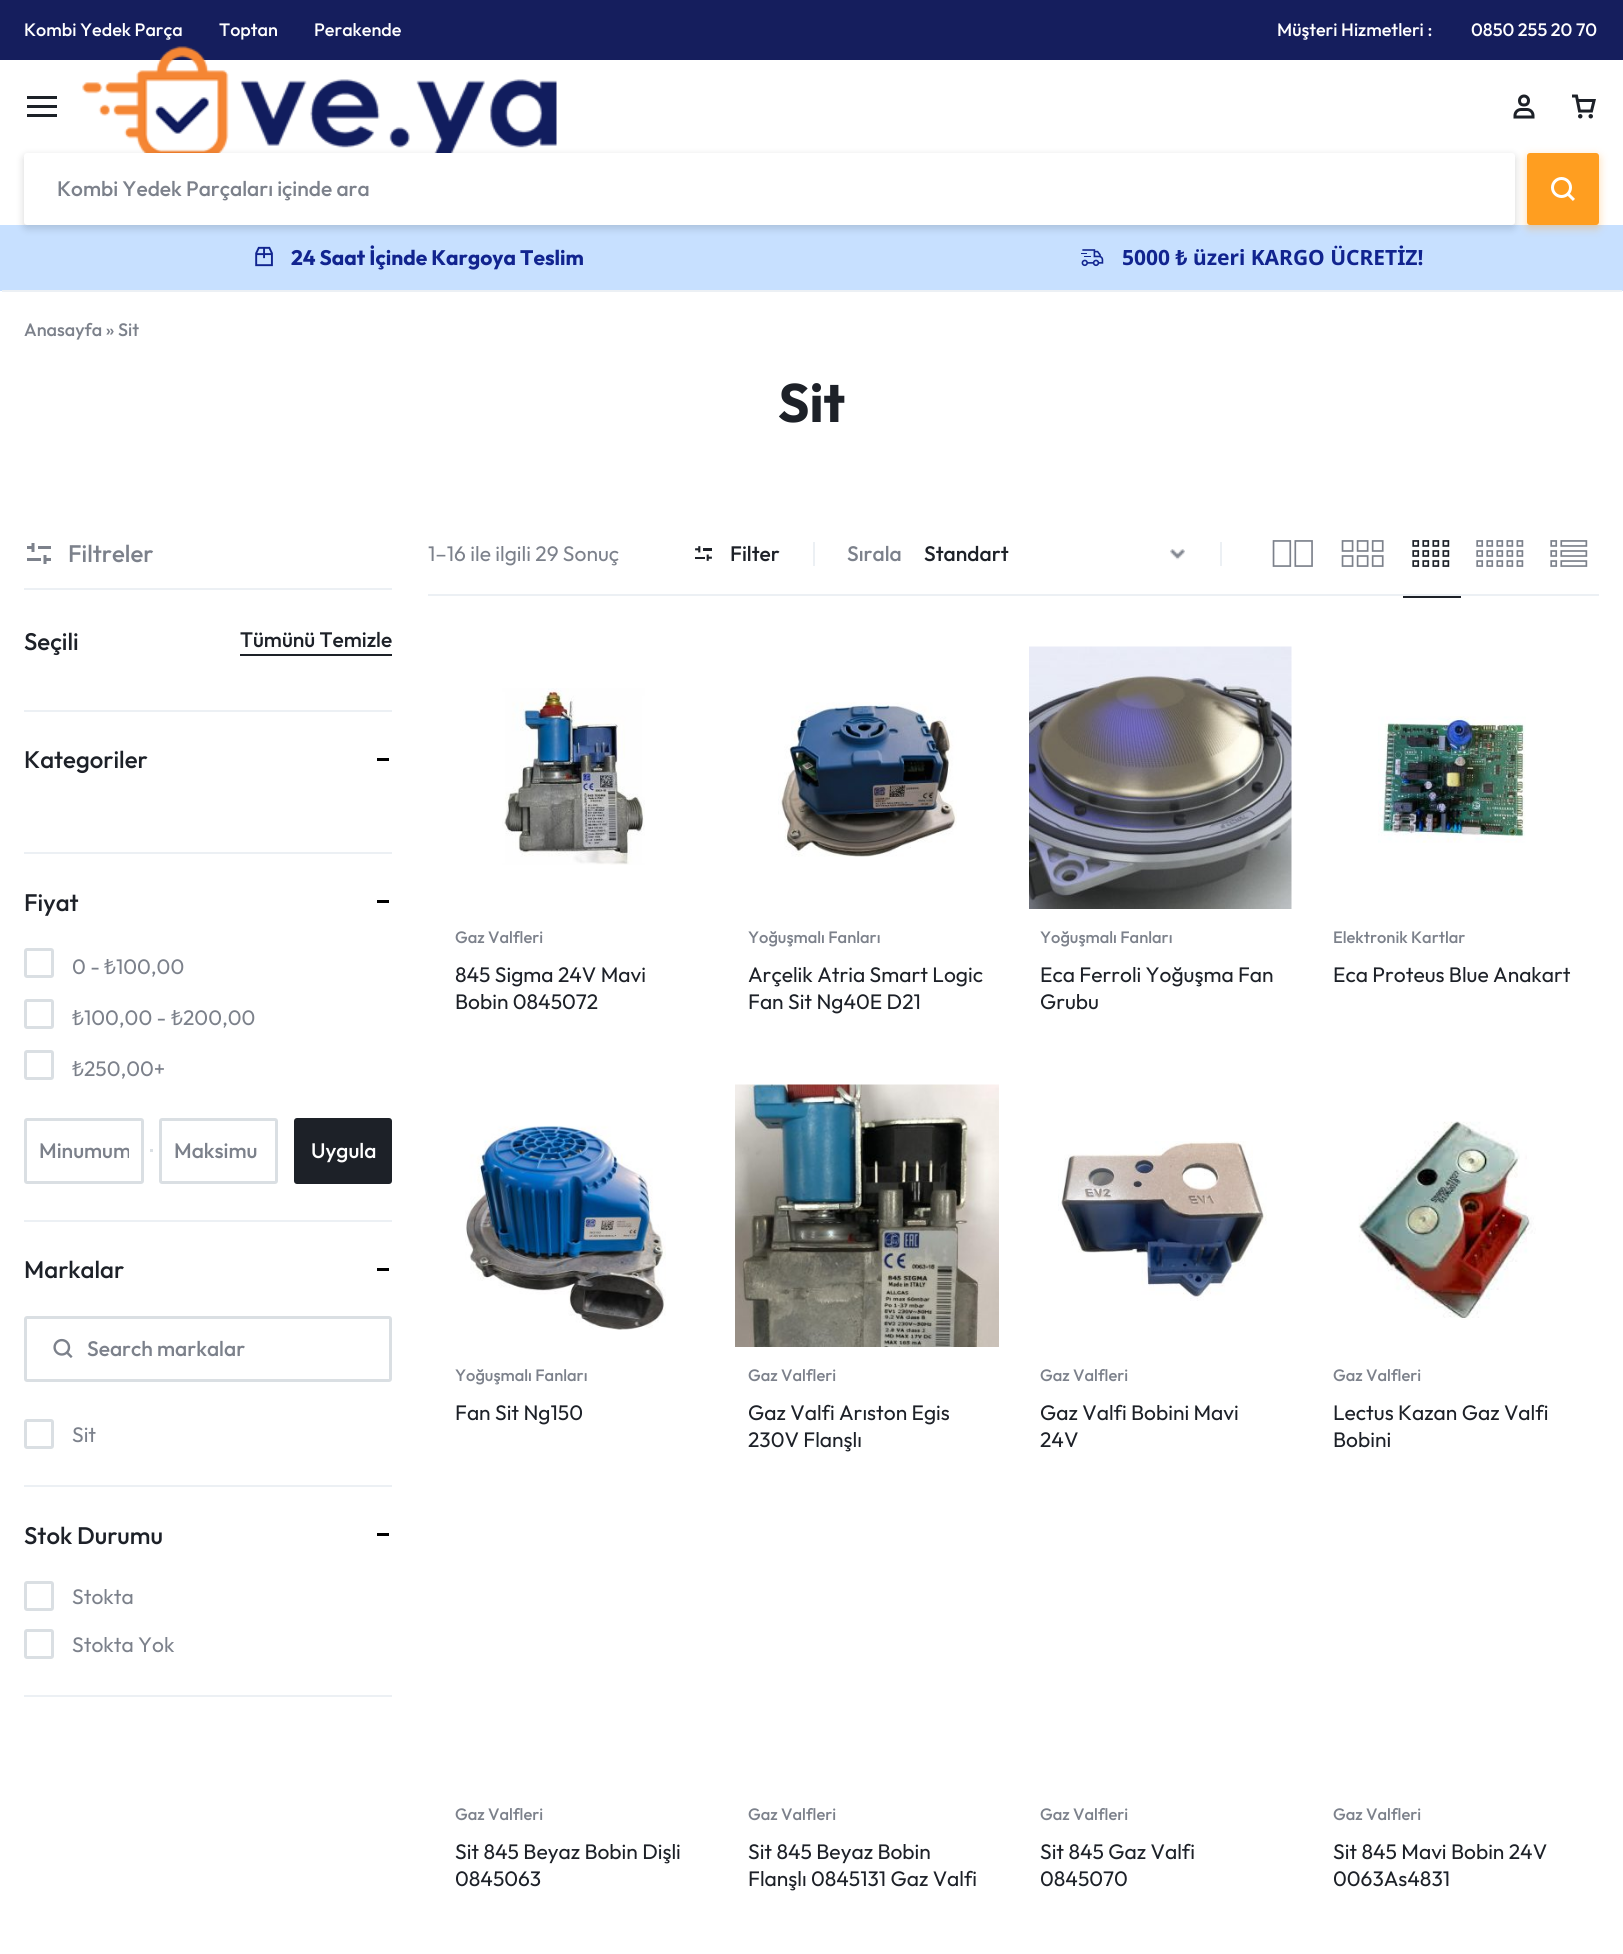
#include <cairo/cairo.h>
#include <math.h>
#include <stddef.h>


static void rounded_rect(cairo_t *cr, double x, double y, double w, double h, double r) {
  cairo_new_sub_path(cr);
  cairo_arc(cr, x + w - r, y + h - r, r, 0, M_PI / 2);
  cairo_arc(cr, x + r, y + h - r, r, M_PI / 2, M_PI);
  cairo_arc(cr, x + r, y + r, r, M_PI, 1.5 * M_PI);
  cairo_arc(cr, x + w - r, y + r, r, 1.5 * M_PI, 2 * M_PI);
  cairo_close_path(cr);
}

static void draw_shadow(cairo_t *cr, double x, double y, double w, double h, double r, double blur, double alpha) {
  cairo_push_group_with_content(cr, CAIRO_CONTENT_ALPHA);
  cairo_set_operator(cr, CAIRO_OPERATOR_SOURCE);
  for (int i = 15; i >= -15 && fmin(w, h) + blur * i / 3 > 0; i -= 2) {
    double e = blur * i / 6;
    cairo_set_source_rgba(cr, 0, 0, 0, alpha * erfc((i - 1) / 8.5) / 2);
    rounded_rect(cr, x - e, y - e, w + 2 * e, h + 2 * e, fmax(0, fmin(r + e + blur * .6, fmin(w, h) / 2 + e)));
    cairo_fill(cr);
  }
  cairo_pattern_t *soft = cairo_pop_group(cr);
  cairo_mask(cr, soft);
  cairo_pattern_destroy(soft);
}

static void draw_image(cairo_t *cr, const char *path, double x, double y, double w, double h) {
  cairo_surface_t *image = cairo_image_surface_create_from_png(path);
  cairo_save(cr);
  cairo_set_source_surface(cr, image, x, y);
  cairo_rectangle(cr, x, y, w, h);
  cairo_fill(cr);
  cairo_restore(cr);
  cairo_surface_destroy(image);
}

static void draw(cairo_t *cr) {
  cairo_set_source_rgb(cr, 1, 1, 1);
  cairo_paint(cr);
  cairo_set_source_rgb(cr, 21 / 255.0, 30 / 255.0, 93 / 255.0);
  cairo_rectangle(cr, 0, 0, 1623, 60);
  cairo_fill(cr);
  cairo_set_source_rgb(cr, 29 / 255.0, 33 / 255.0, 40 / 255.0);
  cairo_rectangle(cr, 27, 96, 30, 3);
  cairo_fill(cr);
  cairo_rectangle(cr, 27, 105, 30, 3);
  cairo_fill(cr);
  cairo_rectangle(cr, 27, 114, 30, 3);
  cairo_fill(cr);
  draw_image(cr, "images/1.png", 82, 46, 475, 107);
  draw_image(cr, "images/2.png", 1513, 94, 22, 25);
  draw_image(cr, "images/3.png", 1572, 94, 24, 25);
  cairo_set_source_rgb(cr, 199 / 255.0, 224 / 255.0, 1);
  cairo_rectangle(cr, 0, 225, 1623, 66);
  cairo_fill(cr);
  cairo_set_source_rgb(cr, 1, 158 / 255.0, 32 / 255.0);
  draw_shadow(cr, 1527, 156, 72, 72, 3, 4.5, 0.4);
  cairo_set_source_rgb(cr, 1, 158 / 255.0, 32 / 255.0);
  rounded_rect(cr, 1527, 153, 72, 72, 3);
  cairo_fill(cr);
  cairo_set_source_rgb(cr, 0, 0, 0);
  draw_shadow(cr, 24, 156, 1491, 72, 3, 4.5, 0.16);
  cairo_set_source_rgb(cr, 1, 1, 1);
  rounded_rect(cr, 24, 153, 1491, 72, 3);
  cairo_fill(cr);
  draw_image(cr, "images/4.png", 1551, 177, 24, 24);
  draw_image(cr, "images/5.png", 255, 246, 18, 21);
  draw_image(cr, "images/6.png", 1081, 249, 23, 18);
  cairo_set_source_rgb(cr, 236 / 255.0, 240 / 255.0, 244 / 255.0);
  cairo_rectangle(cr, 2, 290, 1620, 2);
  cairo_fill(cr);
  cairo_rectangle(cr, 24, 588, 368, 2);
  cairo_fill(cr);
  draw_image(cr, "images/7.png", 27, 543, 24, 21);
  cairo_rectangle(cr, 24, 710, 368, 2);
  cairo_fill(cr);
  cairo_set_source_rgb(cr, 29 / 255.0, 33 / 255.0, 40 / 255.0);
  cairo_rectangle(cr, 240, 654, 152, 2);
  cairo_fill(cr);
  cairo_set_source_rgb(cr, 236 / 255.0, 240 / 255.0, 244 / 255.0);
  cairo_rectangle(cr, 24, 852, 368, 2);
  cairo_fill(cr);
  cairo_set_source_rgb(cr, 0, 0, 0);
  cairo_rectangle(cr, 377, 758, 12, 3);
  cairo_fill(cr);
  cairo_set_source_rgb(cr, 236 / 255.0, 240 / 255.0, 244 / 255.0);
  cairo_rectangle(cr, 24, 1220, 368, 2);
  cairo_fill(cr);
  cairo_set_source_rgb(cr, 0, 0, 0);
  cairo_rectangle(cr, 377, 900, 12, 3);
  cairo_fill(cr);
  rounded_rect(cr, 25.5, 949.5, 27, 27, 1.5);
  cairo_set_source_rgb(cr, 218 / 255.0, 223 / 255.0, 227 / 255.0);
  cairo_set_line_width(cr, 3);
  cairo_stroke(cr);
  rounded_rect(cr, 25.5, 1000.5, 27, 27, 1.5);
  cairo_stroke(cr);
  rounded_rect(cr, 25.5, 1051.5, 27, 27, 1.5);
  cairo_stroke(cr);
  rounded_rect(cr, 25.5, 1119.5, 117, 63, 1.5);
  cairo_stroke(cr);
  cairo_rectangle(cr, 150, 1149, 3, 3);
  cairo_fill(cr);
  rounded_rect(cr, 160.5, 1119.5, 116, 63, 1.5);
  cairo_stroke(cr);
  cairo_set_source_rgb(cr, 29 / 255.0, 33 / 255.0, 40 / 255.0);
  rounded_rect(cr, 294, 1118, 98, 66, 3);
  cairo_fill(cr);
  cairo_set_source_rgb(cr, 236 / 255.0, 240 / 255.0, 244 / 255.0);
  cairo_rectangle(cr, 24, 1485, 368, 2);
  cairo_fill(cr);
  cairo_set_source_rgb(cr, 0, 0, 0);
  cairo_rectangle(cr, 377, 1268, 12, 3);
  cairo_fill(cr);
  draw_image(cr, "images/8.png", 53, 1338, 20, 20);
  rounded_rect(cr, 25.5, 1317.5, 365, 63, 1.5);
  cairo_set_source_rgb(cr, 218 / 255.0, 223 / 255.0, 227 / 255.0);
  cairo_stroke(cr);
  rounded_rect(cr, 25.5, 1420.5, 27, 27, 1.5);
  cairo_stroke(cr);
  cairo_set_source_rgb(cr, 236 / 255.0, 240 / 255.0, 244 / 255.0);
  cairo_rectangle(cr, 24, 1695, 368, 2);
  cairo_fill(cr);
  cairo_set_source_rgb(cr, 0, 0, 0);
  cairo_rectangle(cr, 377, 1533, 12, 3);
  cairo_fill(cr);
  rounded_rect(cr, 25.5, 1582.5, 27, 27, 1.5);
  cairo_set_source_rgb(cr, 218 / 255.0, 223 / 255.0, 227 / 255.0);
  cairo_stroke(cr);
  rounded_rect(cr, 25.5, 1630.5, 27, 27, 1.5);
  cairo_stroke(cr);
  cairo_set_source_rgb(cr, 236 / 255.0, 240 / 255.0, 244 / 255.0);
  cairo_rectangle(cr, 428, 594, 1171, 2);
  cairo_fill(cr);
  draw_image(cr, "images/9.png", 695, 546, 17, 15);
  cairo_rectangle(cr, 813, 542, 2, 24);
  cairo_fill(cr);
  draw_image(cr, "images/10.png", 1170, 549, 15, 11);
  cairo_rectangle(cr, 1220, 542, 2, 24);
  cairo_fill(cr);
  draw_image(cr, "images/11.png", 1272, 540, 41, 27);
  draw_image(cr, "images/12.png", 1341, 540, 43, 27);
  draw_image(cr, "images/13.png", 1412, 540, 38, 27);
  cairo_set_source_rgb(cr, 29 / 255.0, 33 / 255.0, 40 / 255.0);
  cairo_rectangle(cr, 1403, 596, 58, 2);
  cairo_fill(cr);
  draw_image(cr, "images/14.png", 1476, 540, 48, 27);
  draw_image(cr, "images/15.png", 1550, 540, 38, 27);
  draw_image(cr, "images/16.png", 502, 688, 143, 177);
  draw_image(cr, "images/17.png", 778, 702, 179, 155);
  draw_image(cr, "images/18.png", 1029, 646, 263, 263);
  draw_image(cr, "images/19.png", 1378, 716, 148, 127);
  draw_image(cr, "images/20.png", 465, 1125, 201, 205);
  draw_image(cr, "images/21.png", 735, 1084, 264, 263);
  draw_image(cr, "images/22.png", 1058, 1141, 209, 160);
  draw_image(cr, "images/23.png", 1358, 1121, 178, 199);
  cairo_select_font_face(cr, "Outfit Medium", CAIRO_FONT_SLANT_NORMAL, CAIRO_FONT_WEIGHT_NORMAL);
  cairo_set_font_size(cr, 18);
  cairo_set_source_rgb(cr, 1, 1, 1);
  cairo_move_to(cr, 24, 36);
  cairo_show_text(cr, "Kombi Yedek Parça");
  cairo_move_to(cr, 219, 36);
  cairo_show_text(cr, "Toptan");
  cairo_move_to(cr, 314, 36);
  cairo_show_text(cr, "Perakende");
  cairo_move_to(cr, 1277, 36);
  cairo_show_text(cr, "Müşteri Hizmetleri :");
  cairo_move_to(cr, 1471, 36);
  cairo_show_text(cr, "0850 255 20 70");
  cairo_set_font_size(cr, 21);
  cairo_set_source_rgb(cr, 124 / 255.0, 129 / 255.0, 139 / 255.0);
  cairo_move_to(cr, 57, 196);
  cairo_show_text(cr, "Kombi Yedek Parçaları içinde ara");
  cairo_select_font_face(cr, "Outfit", CAIRO_FONT_SLANT_NORMAL, CAIRO_FONT_WEIGHT_BOLD);
  cairo_set_source_rgb(cr, 17 / 255.0, 36 / 255.0, 143 / 255.0);
  cairo_move_to(cr, 291, 265);
  cairo_show_text(cr, "24 Saat İçinde Kargoya Teslim");
  cairo_select_font_face(cr, "Noto Sans", CAIRO_FONT_SLANT_NORMAL, CAIRO_FONT_WEIGHT_BOLD);
  cairo_move_to(cr, 1122, 265);
  cairo_show_text(cr, "5000 ₺ üzeri KARGO ÜCRETİZ!");
  cairo_select_font_face(cr, "Outfit Medium", CAIRO_FONT_SLANT_NORMAL, CAIRO_FONT_WEIGHT_NORMAL);
  cairo_set_font_size(cr, 18);
  cairo_set_source_rgb(cr, 124 / 255.0, 129 / 255.0, 139 / 255.0);
  cairo_move_to(cr, 24, 336);
  cairo_show_text(cr, "Anasayfa » Sit");
  cairo_select_font_face(cr, "Outfit", CAIRO_FONT_SLANT_NORMAL, CAIRO_FONT_WEIGHT_BOLD);
  cairo_set_font_size(cr, 54);
  cairo_set_source_rgb(cr, 29 / 255.0, 33 / 255.0, 40 / 255.0);
  cairo_move_to(cr, 778, 422);
  cairo_show_text(cr, "Sit");
  cairo_select_font_face(cr, "Outfit Medium", CAIRO_FONT_SLANT_NORMAL, CAIRO_FONT_WEIGHT_NORMAL);
  cairo_set_font_size(cr, 24);
  cairo_set_source_rgb(cr, 124 / 255.0, 129 / 255.0, 139 / 255.0);
  cairo_move_to(cr, 68, 562);
  cairo_show_text(cr, "Filtreler");
  cairo_set_source_rgb(cr, 29 / 255.0, 33 / 255.0, 40 / 255.0);
  cairo_move_to(cr, 24, 650);
  cairo_show_text(cr, "Seçili");
  cairo_set_font_size(cr, 21);
  cairo_move_to(cr, 240, 647);
  cairo_show_text(cr, "Tümünü Temizle");
  cairo_set_font_size(cr, 24);
  cairo_move_to(cr, 24, 768);
  cairo_show_text(cr, "Kategoriler");
  cairo_move_to(cr, 24, 911);
  cairo_show_text(cr, "Fiyat");
  cairo_select_font_face(cr, "Outfit", CAIRO_FONT_SLANT_NORMAL, CAIRO_FONT_WEIGHT_NORMAL);
  cairo_set_font_size(cr, 21);
  cairo_set_source_rgb(cr, 124 / 255.0, 129 / 255.0, 139 / 255.0);
  cairo_move_to(cr, 72, 974);
  cairo_show_text(cr, "0 -");
  cairo_select_font_face(cr, "Noto Sans", CAIRO_FONT_SLANT_NORMAL, CAIRO_FONT_WEIGHT_NORMAL);
  cairo_move_to(cr, 104, 974);
  cairo_show_text(cr, "₺");
  cairo_select_font_face(cr, "Outfit", CAIRO_FONT_SLANT_NORMAL, CAIRO_FONT_WEIGHT_NORMAL);
  cairo_move_to(cr, 116, 974);
  cairo_show_text(cr, "100,00");
  cairo_select_font_face(cr, "Noto Sans", CAIRO_FONT_SLANT_NORMAL, CAIRO_FONT_WEIGHT_NORMAL);
  cairo_move_to(cr, 72, 1025);
  cairo_show_text(cr, "₺");
  cairo_select_font_face(cr, "Outfit", CAIRO_FONT_SLANT_NORMAL, CAIRO_FONT_WEIGHT_NORMAL);
  cairo_move_to(cr, 84, 1025);
  cairo_show_text(cr, "100,00 -");
  cairo_select_font_face(cr, "Noto Sans", CAIRO_FONT_SLANT_NORMAL, CAIRO_FONT_WEIGHT_NORMAL);
  cairo_move_to(cr, 171, 1025);
  cairo_show_text(cr, "₺");
  cairo_select_font_face(cr, "Outfit", CAIRO_FONT_SLANT_NORMAL, CAIRO_FONT_WEIGHT_NORMAL);
  cairo_move_to(cr, 183, 1025);
  cairo_show_text(cr, "200,00");
  cairo_select_font_face(cr, "Noto Sans", CAIRO_FONT_SLANT_NORMAL, CAIRO_FONT_WEIGHT_NORMAL);
  cairo_move_to(cr, 72, 1076);
  cairo_show_text(cr, "₺");
  cairo_select_font_face(cr, "Outfit", CAIRO_FONT_SLANT_NORMAL, CAIRO_FONT_WEIGHT_NORMAL);
  cairo_move_to(cr, 84, 1076);
  cairo_show_text(cr, "250,00+");
  cairo_save(cr);
  cairo_rectangle(cr, 39, 1137, 90, 27);
  cairo_clip(cr);
  cairo_select_font_face(cr, "Outfit Medium", CAIRO_FONT_SLANT_NORMAL, CAIRO_FONT_WEIGHT_NORMAL);
  cairo_move_to(cr, 39, 1158);
  cairo_show_text(cr, "Minumum");
  cairo_restore(cr);
  cairo_select_font_face(cr, "Outfit Medium", CAIRO_FONT_SLANT_NORMAL, CAIRO_FONT_WEIGHT_NORMAL);
  cairo_move_to(cr, 174, 1158);
  cairo_show_text(cr, "Maksimu");
  cairo_set_source_rgb(cr, 1, 1, 1);
  cairo_move_to(cr, 311, 1158);
  cairo_show_text(cr, "Uygula");
  cairo_set_font_size(cr, 24);
  cairo_set_source_rgb(cr, 29 / 255.0, 33 / 255.0, 40 / 255.0);
  cairo_move_to(cr, 24, 1278);
  cairo_show_text(cr, "Markalar");
  cairo_set_font_size(cr, 21);
  cairo_set_source_rgb(cr, 124 / 255.0, 129 / 255.0, 139 / 255.0);
  cairo_move_to(cr, 87, 1356);
  cairo_show_text(cr, "Search markalar");
  cairo_select_font_face(cr, "Outfit", CAIRO_FONT_SLANT_NORMAL, CAIRO_FONT_WEIGHT_NORMAL);
  cairo_move_to(cr, 72, 1442);
  cairo_show_text(cr, "Sit");
  cairo_select_font_face(cr, "Outfit Medium", CAIRO_FONT_SLANT_NORMAL, CAIRO_FONT_WEIGHT_NORMAL);
  cairo_set_font_size(cr, 24);
  cairo_set_source_rgb(cr, 29 / 255.0, 33 / 255.0, 40 / 255.0);
  cairo_move_to(cr, 24, 1544);
  cairo_show_text(cr, "Stok Durumu");
  cairo_select_font_face(cr, "Outfit", CAIRO_FONT_SLANT_NORMAL, CAIRO_FONT_WEIGHT_NORMAL);
  cairo_set_font_size(cr, 21);
  cairo_set_source_rgb(cr, 124 / 255.0, 129 / 255.0, 139 / 255.0);
  cairo_move_to(cr, 72, 1604);
  cairo_show_text(cr, "Stokta");
  cairo_move_to(cr, 72, 1652);
  cairo_show_text(cr, "Stokta Yok");
  cairo_move_to(cr, 428, 561);
  cairo_show_text(cr, "1–16 ile ilgili 29 Sonuç");
  cairo_select_font_face(cr, "Outfit Medium", CAIRO_FONT_SLANT_NORMAL, CAIRO_FONT_WEIGHT_NORMAL);
  cairo_set_source_rgb(cr, 29 / 255.0, 33 / 255.0, 40 / 255.0);
  cairo_move_to(cr, 730, 561);
  cairo_show_text(cr, "Filter");
  cairo_set_source_rgb(cr, 124 / 255.0, 129 / 255.0, 139 / 255.0);
  cairo_move_to(cr, 847, 561);
  cairo_show_text(cr, "Sırala");
  cairo_set_source_rgb(cr, 29 / 255.0, 33 / 255.0, 40 / 255.0);
  cairo_move_to(cr, 924, 561);
  cairo_show_text(cr, "Standart");
  cairo_set_font_size(cr, 16.5);
  cairo_set_source_rgb(cr, 124 / 255.0, 129 / 255.0, 139 / 255.0);
  cairo_move_to(cr, 455, 943);
  cairo_show_text(cr, "Gaz Valfleri");
  cairo_select_font_face(cr, "Outfit", CAIRO_FONT_SLANT_NORMAL, CAIRO_FONT_WEIGHT_NORMAL);
  cairo_set_font_size(cr, 21);
  cairo_set_source_rgb(cr, 29 / 255.0, 33 / 255.0, 40 / 255.0);
  cairo_move_to(cr, 455, 982);
  cairo_show_text(cr, "845 Sigma 24V Mavi");
  cairo_move_to(cr, 455, 1009);
  cairo_show_text(cr, "Bobin 0845072");
  cairo_select_font_face(cr, "Outfit Medium", CAIRO_FONT_SLANT_NORMAL, CAIRO_FONT_WEIGHT_NORMAL);
  cairo_set_font_size(cr, 16.5);
  cairo_set_source_rgb(cr, 124 / 255.0, 129 / 255.0, 139 / 255.0);
  cairo_move_to(cr, 748, 943);
  cairo_show_text(cr, "Yoğuşmalı Fanları");
  cairo_select_font_face(cr, "Outfit", CAIRO_FONT_SLANT_NORMAL, CAIRO_FONT_WEIGHT_NORMAL);
  cairo_set_font_size(cr, 21);
  cairo_set_source_rgb(cr, 29 / 255.0, 33 / 255.0, 40 / 255.0);
  cairo_move_to(cr, 748, 982);
  cairo_show_text(cr, "Arçelik Atria Smart Logic");
  cairo_move_to(cr, 748, 1009);
  cairo_show_text(cr, "Fan Sit Ng40E D21");
  cairo_select_font_face(cr, "Outfit Medium", CAIRO_FONT_SLANT_NORMAL, CAIRO_FONT_WEIGHT_NORMAL);
  cairo_set_font_size(cr, 16.5);
  cairo_set_source_rgb(cr, 124 / 255.0, 129 / 255.0, 139 / 255.0);
  cairo_move_to(cr, 1040, 943);
  cairo_show_text(cr, "Yoğuşmalı Fanları");
  cairo_select_font_face(cr, "Outfit", CAIRO_FONT_SLANT_NORMAL, CAIRO_FONT_WEIGHT_NORMAL);
  cairo_set_font_size(cr, 21);
  cairo_set_source_rgb(cr, 29 / 255.0, 33 / 255.0, 40 / 255.0);
  cairo_move_to(cr, 1040, 982);
  cairo_show_text(cr, "Eca Ferroli Yoğuşma Fan");
  cairo_move_to(cr, 1040, 1009);
  cairo_show_text(cr, "Grubu");
  cairo_select_font_face(cr, "Outfit Medium", CAIRO_FONT_SLANT_NORMAL, CAIRO_FONT_WEIGHT_NORMAL);
  cairo_set_font_size(cr, 16.5);
  cairo_set_source_rgb(cr, 124 / 255.0, 129 / 255.0, 139 / 255.0);
  cairo_move_to(cr, 1333, 943);
  cairo_show_text(cr, "Elektronik Kartlar");
  cairo_select_font_face(cr, "Outfit", CAIRO_FONT_SLANT_NORMAL, CAIRO_FONT_WEIGHT_NORMAL);
  cairo_set_font_size(cr, 21);
  cairo_set_source_rgb(cr, 29 / 255.0, 33 / 255.0, 40 / 255.0);
  cairo_move_to(cr, 1333, 982);
  cairo_show_text(cr, "Eca Proteus Blue Anakart");
  cairo_select_font_face(cr, "Outfit Medium", CAIRO_FONT_SLANT_NORMAL, CAIRO_FONT_WEIGHT_NORMAL);
  cairo_set_font_size(cr, 16.5);
  cairo_set_source_rgb(cr, 124 / 255.0, 129 / 255.0, 139 / 255.0);
  cairo_move_to(cr, 455, 1381);
  cairo_show_text(cr, "Yoğuşmalı Fanları");
  cairo_select_font_face(cr, "Outfit", CAIRO_FONT_SLANT_NORMAL, CAIRO_FONT_WEIGHT_NORMAL);
  cairo_set_font_size(cr, 21);
  cairo_set_source_rgb(cr, 29 / 255.0, 33 / 255.0, 40 / 255.0);
  cairo_move_to(cr, 455, 1420);
  cairo_show_text(cr, "Fan Sit Ng150");
  cairo_select_font_face(cr, "Outfit Medium", CAIRO_FONT_SLANT_NORMAL, CAIRO_FONT_WEIGHT_NORMAL);
  cairo_set_font_size(cr, 16.5);
  cairo_set_source_rgb(cr, 124 / 255.0, 129 / 255.0, 139 / 255.0);
  cairo_move_to(cr, 748, 1381);
  cairo_show_text(cr, "Gaz Valfleri");
  cairo_select_font_face(cr, "Outfit", CAIRO_FONT_SLANT_NORMAL, CAIRO_FONT_WEIGHT_NORMAL);
  cairo_set_font_size(cr, 21);
  cairo_set_source_rgb(cr, 29 / 255.0, 33 / 255.0, 40 / 255.0);
  cairo_move_to(cr, 748, 1420);
  cairo_show_text(cr, "Gaz Valfi Arıston Egis");
  cairo_move_to(cr, 748, 1447);
  cairo_show_text(cr, "230V Flanşlı");
  cairo_select_font_face(cr, "Outfit Medium", CAIRO_FONT_SLANT_NORMAL, CAIRO_FONT_WEIGHT_NORMAL);
  cairo_set_font_size(cr, 16.5);
  cairo_set_source_rgb(cr, 124 / 255.0, 129 / 255.0, 139 / 255.0);
  cairo_move_to(cr, 1040, 1381);
  cairo_show_text(cr, "Gaz Valfleri");
  cairo_select_font_face(cr, "Outfit", CAIRO_FONT_SLANT_NORMAL, CAIRO_FONT_WEIGHT_NORMAL);
  cairo_set_font_size(cr, 21);
  cairo_set_source_rgb(cr, 29 / 255.0, 33 / 255.0, 40 / 255.0);
  cairo_move_to(cr, 1040, 1420);
  cairo_show_text(cr, "Gaz Valfi Bobini Mavi");
  cairo_move_to(cr, 1040, 1447);
  cairo_show_text(cr, "24V");
  cairo_select_font_face(cr, "Outfit Medium", CAIRO_FONT_SLANT_NORMAL, CAIRO_FONT_WEIGHT_NORMAL);
  cairo_set_font_size(cr, 16.5);
  cairo_set_source_rgb(cr, 124 / 255.0, 129 / 255.0, 139 / 255.0);
  cairo_move_to(cr, 1333, 1381);
  cairo_show_text(cr, "Gaz Valfleri");
  cairo_select_font_face(cr, "Outfit", CAIRO_FONT_SLANT_NORMAL, CAIRO_FONT_WEIGHT_NORMAL);
  cairo_set_font_size(cr, 21);
  cairo_set_source_rgb(cr, 29 / 255.0, 33 / 255.0, 40 / 255.0);
  cairo_move_to(cr, 1333, 1420);
  cairo_show_text(cr, "Lectus Kazan Gaz Valfi");
  cairo_move_to(cr, 1333, 1447);
  cairo_show_text(cr, "Bobini");
  cairo_select_font_face(cr, "Outfit Medium", CAIRO_FONT_SLANT_NORMAL, CAIRO_FONT_WEIGHT_NORMAL);
  cairo_set_font_size(cr, 16.5);
  cairo_set_source_rgb(cr, 124 / 255.0, 129 / 255.0, 139 / 255.0);
  cairo_move_to(cr, 455, 1820);
  cairo_show_text(cr, "Gaz Valfleri");
  cairo_select_font_face(cr, "Outfit", CAIRO_FONT_SLANT_NORMAL, CAIRO_FONT_WEIGHT_NORMAL);
  cairo_set_font_size(cr, 21);
  cairo_set_source_rgb(cr, 29 / 255.0, 33 / 255.0, 40 / 255.0);
  cairo_move_to(cr, 455, 1859);
  cairo_show_text(cr, "Sit 845 Beyaz Bobin Dişli");
  cairo_move_to(cr, 455, 1886);
  cairo_show_text(cr, "0845063");
  cairo_select_font_face(cr, "Outfit Medium", CAIRO_FONT_SLANT_NORMAL, CAIRO_FONT_WEIGHT_NORMAL);
  cairo_set_font_size(cr, 16.5);
  cairo_set_source_rgb(cr, 124 / 255.0, 129 / 255.0, 139 / 255.0);
  cairo_move_to(cr, 748, 1820);
  cairo_show_text(cr, "Gaz Valfleri");
  cairo_select_font_face(cr, "Outfit", CAIRO_FONT_SLANT_NORMAL, CAIRO_FONT_WEIGHT_NORMAL);
  cairo_set_font_size(cr, 21);
  cairo_set_source_rgb(cr, 29 / 255.0, 33 / 255.0, 40 / 255.0);
  cairo_move_to(cr, 748, 1859);
  cairo_show_text(cr, "Sit 845 Beyaz Bobin");
  cairo_move_to(cr, 748, 1886);
  cairo_show_text(cr, "Flanşlı 0845131 Gaz Valfi");
  cairo_select_font_face(cr, "Outfit Medium", CAIRO_FONT_SLANT_NORMAL, CAIRO_FONT_WEIGHT_NORMAL);
  cairo_set_font_size(cr, 16.5);
  cairo_set_source_rgb(cr, 124 / 255.0, 129 / 255.0, 139 / 255.0);
  cairo_move_to(cr, 1040, 1820);
  cairo_show_text(cr, "Gaz Valfleri");
  cairo_select_font_face(cr, "Outfit", CAIRO_FONT_SLANT_NORMAL, CAIRO_FONT_WEIGHT_NORMAL);
  cairo_set_font_size(cr, 21);
  cairo_set_source_rgb(cr, 29 / 255.0, 33 / 255.0, 40 / 255.0);
  cairo_move_to(cr, 1040, 1859);
  cairo_show_text(cr, "Sit 845 Gaz Valfi");
  cairo_move_to(cr, 1040, 1886);
  cairo_show_text(cr, "0845070");
  cairo_select_font_face(cr, "Outfit Medium", CAIRO_FONT_SLANT_NORMAL, CAIRO_FONT_WEIGHT_NORMAL);
  cairo_set_font_size(cr, 16.5);
  cairo_set_source_rgb(cr, 124 / 255.0, 129 / 255.0, 139 / 255.0);
  cairo_move_to(cr, 1333, 1820);
  cairo_show_text(cr, "Gaz Valfleri");
  cairo_select_font_face(cr, "Outfit", CAIRO_FONT_SLANT_NORMAL, CAIRO_FONT_WEIGHT_NORMAL);
  cairo_set_font_size(cr, 21);
  cairo_set_source_rgb(cr, 29 / 255.0, 33 / 255.0, 40 / 255.0);
  cairo_move_to(cr, 1333, 1859);
  cairo_show_text(cr, "Sit 845 Mavi Bobin 24V");
  cairo_move_to(cr, 1333, 1886);
  cairo_show_text(cr, "0063As4831");
}

int main(void) {
  cairo_surface_t *surface = cairo_image_surface_create(CAIRO_FORMAT_RGB24, 1623, 1954);
  cairo_t *cr = cairo_create(surface);
  cairo_font_options_t *options = cairo_font_options_create();
  cairo_font_options_set_hint_metrics(options, CAIRO_HINT_METRICS_OFF);
  cairo_font_options_set_hint_style(options, CAIRO_HINT_STYLE_NONE);
  cairo_set_font_options(cr, options);
  cairo_set_miter_limit(cr, 4);
  draw(cr);
  cairo_surface_write_to_png(surface, "out.png");
  cairo_font_options_destroy(options);
  cairo_destroy(cr);
  cairo_surface_destroy(surface);
  return 0;
}
